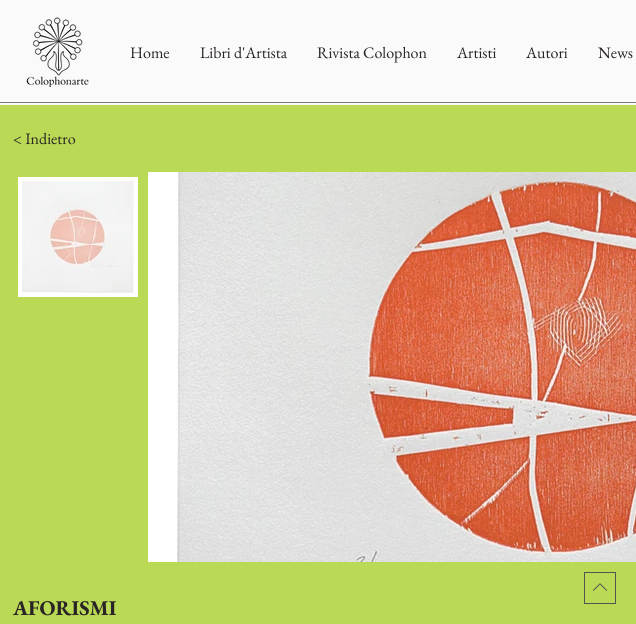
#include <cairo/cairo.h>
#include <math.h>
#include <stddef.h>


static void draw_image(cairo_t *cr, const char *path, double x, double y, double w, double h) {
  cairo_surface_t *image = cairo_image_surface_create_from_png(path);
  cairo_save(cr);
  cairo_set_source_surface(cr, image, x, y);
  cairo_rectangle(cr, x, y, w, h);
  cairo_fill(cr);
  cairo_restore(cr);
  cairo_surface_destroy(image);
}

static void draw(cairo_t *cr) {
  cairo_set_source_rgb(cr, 186 / 255.0, 218 / 255.0, 85 / 255.0);
  cairo_paint(cr);
  cairo_set_source_rgb(cr, 250 / 255.0, 250 / 255.0, 250 / 255.0);
  cairo_rectangle(cr, 0, 0, 636, 105);
  cairo_fill(cr);
  draw_image(cr, "images/1.png", 26, 17, 63, 70);
  cairo_set_source_rgb(cr, 120 / 255.0, 124 / 255.0, 128 / 255.0);
  cairo_rectangle(cr, 0, 102, 636, 1);
  cairo_fill(cr);
  cairo_set_source_rgb(cr, 1, 1, 1);
  cairo_rectangle(cr, 18, 177, 120, 120);
  cairo_fill(cr);
  draw_image(cr, "images/2.png", 22, 181, 112, 112);
  draw_image(cr, "images/3.png", 148, 172, 488, 390);
  draw_image(cr, "images/4.png", 584, 572, 32, 32);
  cairo_select_font_face(cr, "EB Garamond", CAIRO_FONT_SLANT_NORMAL, CAIRO_FONT_WEIGHT_NORMAL);
  cairo_set_font_size(cr, 16);
  cairo_set_source_rgb(cr, 41 / 255.0, 35 / 255.0, 37 / 255.0);
  cairo_move_to(cr, 130, 58);
  cairo_show_text(cr, "Home");
  cairo_move_to(cr, 200, 58);
  cairo_show_text(cr, "Libri d'Artista");
  cairo_move_to(cr, 317, 58);
  cairo_show_text(cr, "Rivista Colophon");
  cairo_move_to(cr, 457, 58);
  cairo_show_text(cr, "Artisti");
  cairo_move_to(cr, 526, 58);
  cairo_show_text(cr, "Autori");
  cairo_move_to(cr, 598, 58);
  cairo_show_text(cr, "News");
  cairo_move_to(cr, 13, 144);
  cairo_show_text(cr, "< Indietro");
  cairo_select_font_face(cr, "EB Garamond", CAIRO_FONT_SLANT_NORMAL, CAIRO_FONT_WEIGHT_BOLD);
  cairo_set_font_size(cr, 21);
  cairo_move_to(cr, 13, 615);
  cairo_show_text(cr, "AFORISMI");
}

int main(void) {
  cairo_surface_t *surface = cairo_image_surface_create(CAIRO_FORMAT_RGB24, 636, 624);
  cairo_t *cr = cairo_create(surface);
  cairo_font_options_t *options = cairo_font_options_create();
  cairo_font_options_set_hint_metrics(options, CAIRO_HINT_METRICS_OFF);
  cairo_font_options_set_hint_style(options, CAIRO_HINT_STYLE_NONE);
  cairo_set_font_options(cr, options);
  cairo_set_miter_limit(cr, 4);
  draw(cr);
  cairo_surface_write_to_png(surface, "out.png");
  cairo_font_options_destroy(options);
  cairo_destroy(cr);
  cairo_surface_destroy(surface);
  return 0;
}
